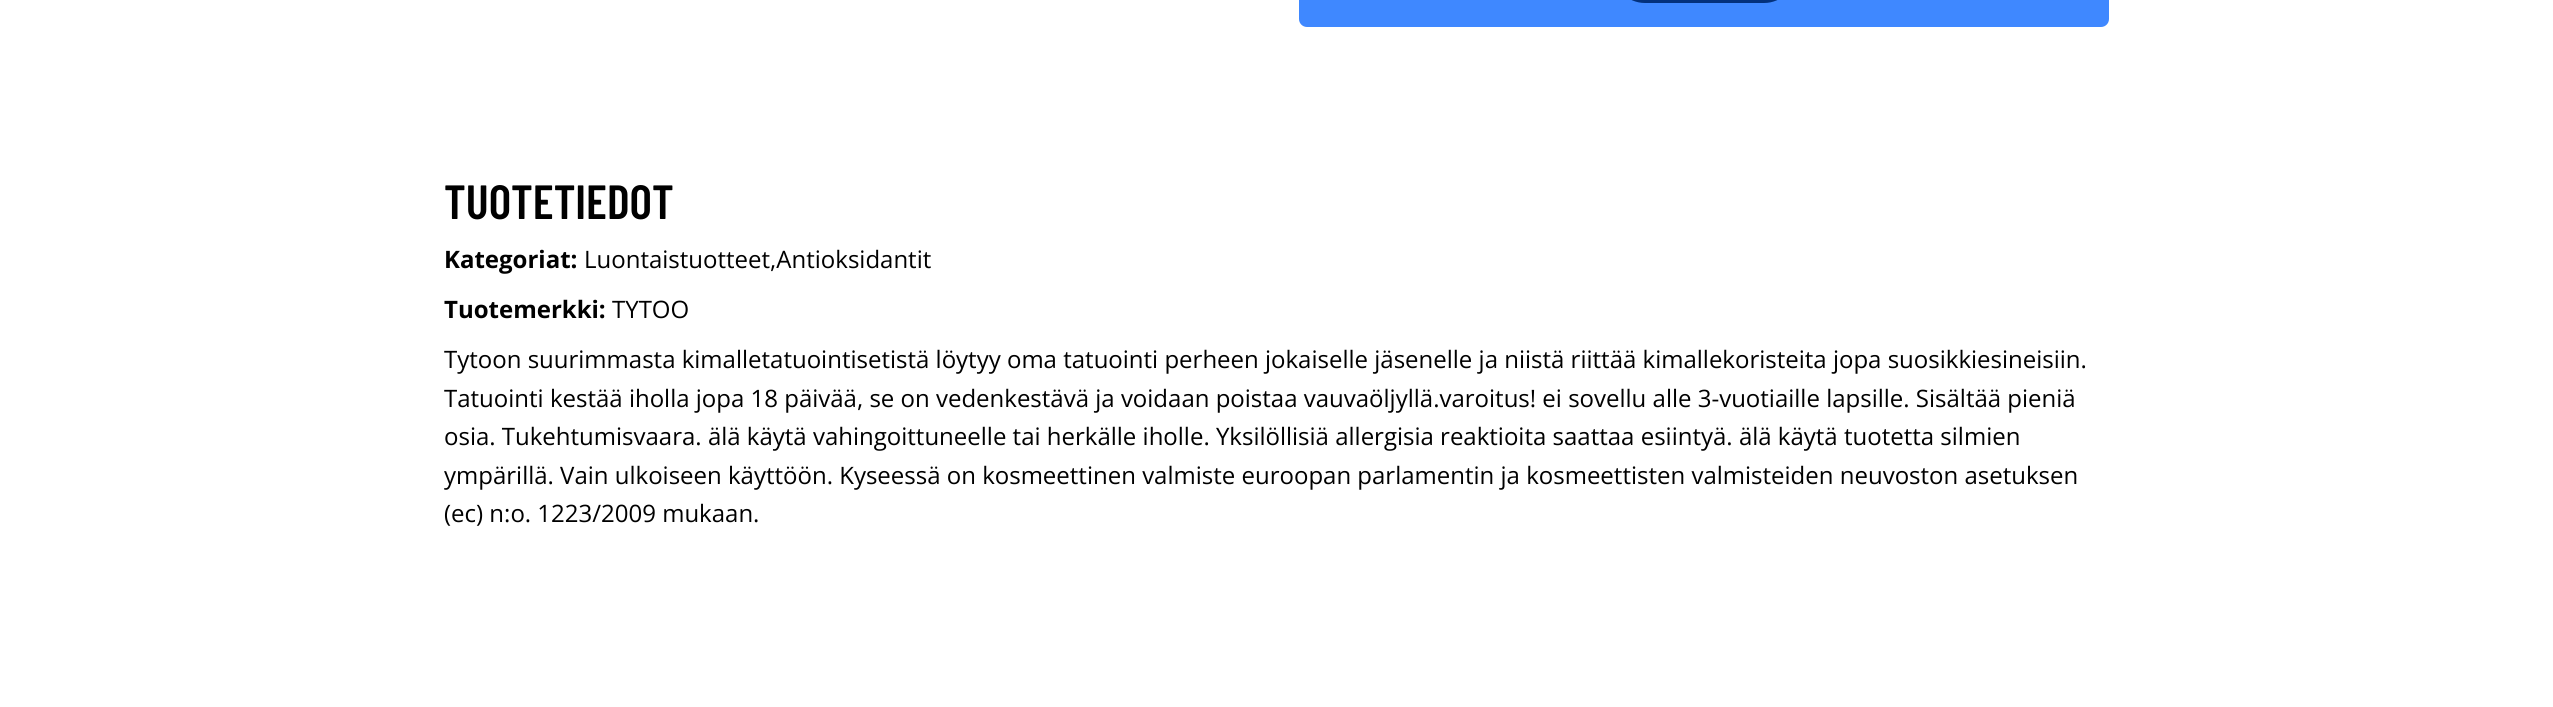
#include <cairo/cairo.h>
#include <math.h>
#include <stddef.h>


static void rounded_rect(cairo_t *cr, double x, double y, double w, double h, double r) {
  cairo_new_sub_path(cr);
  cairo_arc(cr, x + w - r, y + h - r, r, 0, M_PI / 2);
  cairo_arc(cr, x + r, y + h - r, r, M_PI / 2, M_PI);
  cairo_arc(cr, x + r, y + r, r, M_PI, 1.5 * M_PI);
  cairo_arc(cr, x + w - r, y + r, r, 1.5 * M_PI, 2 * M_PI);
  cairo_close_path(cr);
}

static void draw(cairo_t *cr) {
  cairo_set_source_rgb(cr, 1, 1, 1);
  cairo_paint(cr);
  cairo_set_source_rgb(cr, 63 / 255.0, 136 / 255.0, 1);
  rounded_rect(cr, 1299, -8, 810, 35, 8);
  cairo_fill(cr);
  cairo_set_source_rgb(cr, 3 / 255.0, 49 / 255.0, 124 / 255.0);
  rounded_rect(cr, 1614, -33, 181, 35, 31);
  cairo_fill_preserve(cr);
  cairo_stroke(cr);
  cairo_select_font_face(cr, "Barlow Condensed SemiBold", CAIRO_FONT_SLANT_NORMAL, CAIRO_FONT_WEIGHT_NORMAL);
  cairo_set_font_size(cr, 48);
  cairo_set_source_rgb(cr, 0, 0, 0);
  cairo_move_to(cr, 444, 219);
  cairo_show_text(cr, "TUOTETIEDOT");
  cairo_select_font_face(cr, "Open Sans", CAIRO_FONT_SLANT_NORMAL, CAIRO_FONT_WEIGHT_BOLD);
  cairo_set_font_size(cr, 24);
  cairo_move_to(cr, 444, 268);
  cairo_show_text(cr, "Kategoriat:");
  cairo_select_font_face(cr, "Open Sans", CAIRO_FONT_SLANT_NORMAL, CAIRO_FONT_WEIGHT_NORMAL);
  cairo_move_to(cr, 584, 268);
  cairo_show_text(cr, "Luontaistuotteet,Antioksidantit");
  cairo_select_font_face(cr, "Open Sans", CAIRO_FONT_SLANT_NORMAL, CAIRO_FONT_WEIGHT_BOLD);
  cairo_move_to(cr, 444, 318);
  cairo_show_text(cr, "Tuotemerkki:");
  cairo_select_font_face(cr, "Open Sans", CAIRO_FONT_SLANT_NORMAL, CAIRO_FONT_WEIGHT_NORMAL);
  cairo_move_to(cr, 612, 318);
  cairo_show_text(cr, "TYTOO");
  cairo_move_to(cr, 444, 368);
  cairo_show_text(cr, "Tytoon suurimmasta kimalletatuointisetistä löytyy oma tatuointi perheen jokaiselle jäsenelle ja niistä riittää kimallekoristeita jopa suosikkiesineisiin.");
  cairo_move_to(cr, 444, 407);
  cairo_show_text(cr, "Tatuointi kestää iholla jopa 18 päivää, se on vedenkestävä ja voidaan poistaa vauvaöljyllä.varoitus! ei sovellu alle 3-vuotiaille lapsille. Sisältää pieniä");
  cairo_move_to(cr, 444, 445);
  cairo_show_text(cr, "osia. Tukehtumisvaara. älä käytä vahingoittuneelle tai herkälle iholle. Yksilöllisiä allergisia reaktioita saattaa esiintyä. älä käytä tuotetta silmien");
  cairo_move_to(cr, 444, 484);
  cairo_show_text(cr, "ympärillä. Vain ulkoiseen käyttöön. Kyseessä on kosmeettinen valmiste euroopan parlamentin ja kosmeettisten valmisteiden neuvoston asetuksen");
  cairo_move_to(cr, 444, 522);
  cairo_show_text(cr, "(ec) n:o. 1223/2009 mukaan.");
}

int main(void) {
  cairo_surface_t *surface = cairo_image_surface_create(CAIRO_FORMAT_RGB24, 2553, 707);
  cairo_t *cr = cairo_create(surface);
  cairo_font_options_t *options = cairo_font_options_create();
  cairo_font_options_set_hint_metrics(options, CAIRO_HINT_METRICS_OFF);
  cairo_font_options_set_hint_style(options, CAIRO_HINT_STYLE_NONE);
  cairo_set_font_options(cr, options);
  cairo_set_miter_limit(cr, 4);
  draw(cr);
  cairo_surface_write_to_png(surface, "out.png");
  cairo_font_options_destroy(options);
  cairo_destroy(cr);
  cairo_surface_destroy(surface);
  return 0;
}
